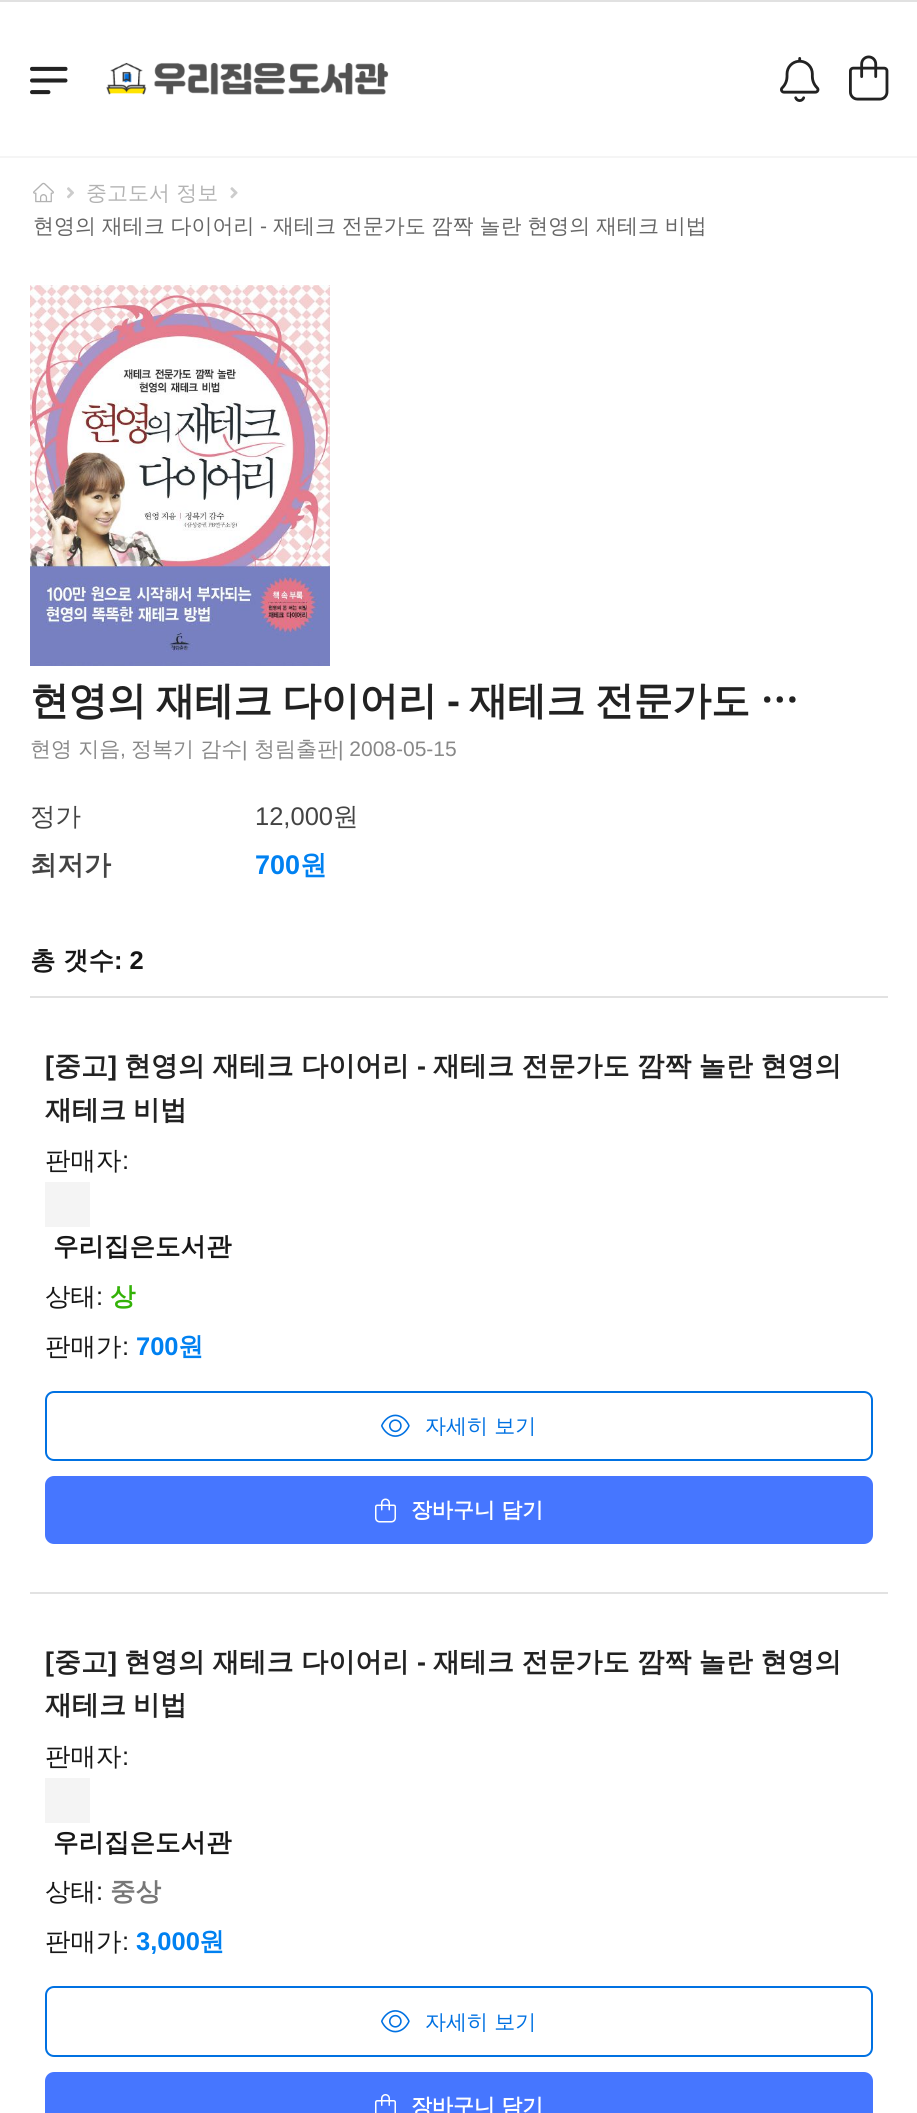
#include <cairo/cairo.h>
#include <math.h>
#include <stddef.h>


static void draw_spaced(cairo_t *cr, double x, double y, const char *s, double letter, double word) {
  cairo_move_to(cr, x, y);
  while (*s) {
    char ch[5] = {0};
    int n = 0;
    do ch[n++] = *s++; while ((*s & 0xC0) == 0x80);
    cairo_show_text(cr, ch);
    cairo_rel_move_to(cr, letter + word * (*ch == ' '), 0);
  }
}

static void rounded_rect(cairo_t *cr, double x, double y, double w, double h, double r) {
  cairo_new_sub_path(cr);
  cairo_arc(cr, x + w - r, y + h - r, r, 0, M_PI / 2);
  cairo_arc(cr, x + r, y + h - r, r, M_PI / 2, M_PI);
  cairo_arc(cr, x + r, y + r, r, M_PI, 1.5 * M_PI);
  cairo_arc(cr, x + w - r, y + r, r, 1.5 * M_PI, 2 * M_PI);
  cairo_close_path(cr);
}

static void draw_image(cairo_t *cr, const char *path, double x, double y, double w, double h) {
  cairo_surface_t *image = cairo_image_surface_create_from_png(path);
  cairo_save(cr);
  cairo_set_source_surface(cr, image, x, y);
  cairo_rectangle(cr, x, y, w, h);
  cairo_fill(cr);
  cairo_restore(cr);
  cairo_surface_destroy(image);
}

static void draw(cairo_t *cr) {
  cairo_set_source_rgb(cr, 1, 1, 1);
  cairo_paint(cr);
  cairo_set_source_rgb(cr, 245 / 255.0, 245 / 255.0, 245 / 255.0);
  cairo_rectangle(cr, 0, 156, 917, 2);
  cairo_fill(cr);
  cairo_set_source_rgb(cr, 225 / 255.0, 225 / 255.0, 225 / 255.0);
  cairo_rectangle(cr, 0, 0, 917, 2);
  cairo_fill(cr);
  draw_image(cr, "images/1.png", 30, 66, 38, 29);
  draw_image(cr, "images/2.png", 106, 62, 283, 33);
  draw_image(cr, "images/3.png", 780, 57, 40, 45);
  draw_image(cr, "images/4.png", 849, 55, 40, 46);
  draw_image(cr, "images/5.png", 33, 182, 21, 21);
  draw_image(cr, "images/6.png", 67, 187, 7, 12);
  draw_image(cr, "images/7.png", 230, 187, 8, 12);
  draw_image(cr, "images/8.png", 30, 285, 300, 381);
  cairo_set_source_rgb(cr, 226 / 255.0, 226 / 255.0, 226 / 255.0);
  cairo_rectangle(cr, 30, 996, 858, 2);
  cairo_fill(cr);
  cairo_rectangle(cr, 30, 1592, 858, 2);
  cairo_fill(cr);
  cairo_set_source_rgb(cr, 244 / 255.0, 244 / 255.0, 244 / 255.0);
  cairo_rectangle(cr, 45, 1182, 45, 45);
  cairo_fill(cr);
  rounded_rect(cr, 46, 1392, 826, 68, 8);
  cairo_set_source_rgb(cr, 0, 113 / 255.0, 226 / 255.0);
  cairo_stroke(cr);
  draw_image(cr, "images/9.png", 381, 1414, 29, 23);
  cairo_set_source_rgb(cr, 70 / 255.0, 118 / 255.0, 1);
  rounded_rect(cr, 45, 1476, 828, 68, 9);
  cairo_fill(cr);
  draw_image(cr, "images/10.png", 375, 1498, 21, 25);
  cairo_set_source_rgb(cr, 244 / 255.0, 244 / 255.0, 244 / 255.0);
  cairo_rectangle(cr, 45, 1778, 45, 45);
  cairo_fill(cr);
  rounded_rect(cr, 46, 1987, 826, 69, 8);
  cairo_set_source_rgb(cr, 0, 113 / 255.0, 226 / 255.0);
  cairo_stroke(cr);
  draw_image(cr, "images/11.png", 381, 2010, 29, 23);
  cairo_set_source_rgb(cr, 70 / 255.0, 118 / 255.0, 1);
  rounded_rect(cr, 45, 2072, 828, 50, 9);
  cairo_fill(cr);
  draw_image(cr, "images/12.png", 375, 2094, 21, 19);
  cairo_select_font_face(cr, "WenQuanYi Zen Hei Medium", CAIRO_FONT_SLANT_NORMAL, CAIRO_FONT_WEIGHT_NORMAL);
  cairo_set_font_size(cr, 21);
  cairo_set_source_rgb(cr, 179 / 255.0, 179 / 255.0, 179 / 255.0);
  cairo_move_to(cr, 86, 200);
  cairo_show_text(cr, "중고도서 정보");
  cairo_set_source_rgb(cr, 102 / 255.0, 102 / 255.0, 102 / 255.0);
  draw_spaced(cr, 33, 233, "현영의 재테크 다이어리", 0, -0.5);
  cairo_select_font_face(cr, "Liberation Sans", CAIRO_FONT_SLANT_NORMAL, CAIRO_FONT_WEIGHT_NORMAL);
  cairo_move_to(cr, 260, 233);
  cairo_show_text(cr, "-");
  cairo_select_font_face(cr, "WenQuanYi Zen Hei Medium", CAIRO_FONT_SLANT_NORMAL, CAIRO_FONT_WEIGHT_NORMAL);
  draw_spaced(cr, 273, 233, "재테크 전문가도 깜짝 놀란 현영의 재테크 비법", 0, -0.5);
  cairo_select_font_face(cr, "WenQuanYi Zen Hei", CAIRO_FONT_SLANT_NORMAL, CAIRO_FONT_WEIGHT_BOLD);
  cairo_set_font_size(cr, 39);
  cairo_set_source_rgb(cr, 34 / 255.0, 34 / 255.0, 34 / 255.0);
  draw_spaced(cr, 30, 714, "현영의 재테크 다이어리", -0.4, -1);
  cairo_select_font_face(cr, "Liberation Sans", CAIRO_FONT_SLANT_NORMAL, CAIRO_FONT_WEIGHT_BOLD);
  draw_spaced(cr, 447, 714, "-", -0.4, 0);
  cairo_select_font_face(cr, "WenQuanYi Zen Hei", CAIRO_FONT_SLANT_NORMAL, CAIRO_FONT_WEIGHT_BOLD);
  draw_spaced(cr, 469, 714, "재테크 전문가도 …", -0.4, -1);
  cairo_select_font_face(cr, "WenQuanYi Zen Hei Medium", CAIRO_FONT_SLANT_NORMAL, CAIRO_FONT_WEIGHT_NORMAL);
  cairo_set_font_size(cr, 21);
  cairo_set_source_rgb(cr, 136 / 255.0, 136 / 255.0, 136 / 255.0);
  cairo_move_to(cr, 30, 756);
  cairo_show_text(cr, "현영 지음");
  cairo_select_font_face(cr, "Liberation Sans", CAIRO_FONT_SLANT_NORMAL, CAIRO_FONT_WEIGHT_NORMAL);
  cairo_move_to(cr, 120, 756);
  cairo_show_text(cr, ",");
  cairo_select_font_face(cr, "WenQuanYi Zen Hei Medium", CAIRO_FONT_SLANT_NORMAL, CAIRO_FONT_WEIGHT_NORMAL);
  cairo_move_to(cr, 131, 756);
  cairo_show_text(cr, "정복기 감수");
  cairo_select_font_face(cr, "Liberation Sans", CAIRO_FONT_SLANT_NORMAL, CAIRO_FONT_WEIGHT_NORMAL);
  cairo_move_to(cr, 242, 756);
  cairo_show_text(cr, "|");
  cairo_select_font_face(cr, "WenQuanYi Zen Hei Medium", CAIRO_FONT_SLANT_NORMAL, CAIRO_FONT_WEIGHT_NORMAL);
  cairo_move_to(cr, 254, 756);
  cairo_show_text(cr, "청림출판");
  cairo_select_font_face(cr, "Liberation Sans", CAIRO_FONT_SLANT_NORMAL, CAIRO_FONT_WEIGHT_NORMAL);
  cairo_move_to(cr, 338, 756);
  cairo_show_text(cr, "| 2008-05-15");
  cairo_select_font_face(cr, "WenQuanYi Zen Hei Medium", CAIRO_FONT_SLANT_NORMAL, CAIRO_FONT_WEIGHT_NORMAL);
  cairo_set_font_size(cr, 25.5);
  cairo_set_source_rgb(cr, 68 / 255.0, 68 / 255.0, 68 / 255.0);
  cairo_move_to(cr, 30, 825);
  cairo_show_text(cr, "정가");
  cairo_select_font_face(cr, "Liberation Sans", CAIRO_FONT_SLANT_NORMAL, CAIRO_FONT_WEIGHT_NORMAL);
  cairo_move_to(cr, 255, 825);
  cairo_show_text(cr, "12,000");
  cairo_select_font_face(cr, "WenQuanYi Zen Hei Medium", CAIRO_FONT_SLANT_NORMAL, CAIRO_FONT_WEIGHT_NORMAL);
  cairo_move_to(cr, 333, 825);
  cairo_show_text(cr, "원");
  cairo_select_font_face(cr, "WenQuanYi Zen Hei", CAIRO_FONT_SLANT_NORMAL, CAIRO_FONT_WEIGHT_BOLD);
  cairo_set_font_size(cr, 27);
  cairo_move_to(cr, 30, 874);
  cairo_show_text(cr, "최저가");
  cairo_select_font_face(cr, "Liberation Sans", CAIRO_FONT_SLANT_NORMAL, CAIRO_FONT_WEIGHT_BOLD);
  cairo_set_source_rgb(cr, 0, 129 / 255.0, 241 / 255.0);
  cairo_move_to(cr, 255, 874);
  cairo_show_text(cr, "700");
  cairo_select_font_face(cr, "WenQuanYi Zen Hei", CAIRO_FONT_SLANT_NORMAL, CAIRO_FONT_WEIGHT_BOLD);
  cairo_move_to(cr, 300, 874);
  cairo_show_text(cr, "원");
  cairo_set_font_size(cr, 25.5);
  cairo_set_source_rgb(cr, 23 / 255.0, 23 / 255.0, 23 / 255.0);
  cairo_move_to(cr, 30, 969);
  cairo_show_text(cr, "총");
  cairo_move_to(cr, 63, 969);
  cairo_show_text(cr, "갯수");
  cairo_select_font_face(cr, "Liberation Sans", CAIRO_FONT_SLANT_NORMAL, CAIRO_FONT_WEIGHT_BOLD);
  cairo_move_to(cr, 114, 969);
  cairo_show_text(cr, ": 2");
  cairo_set_font_size(cr, 27);
  cairo_set_source_rgb(cr, 34 / 255.0, 34 / 255.0, 34 / 255.0);
  cairo_move_to(cr, 45, 1075);
  cairo_show_text(cr, "[");
  cairo_select_font_face(cr, "WenQuanYi Zen Hei", CAIRO_FONT_SLANT_NORMAL, CAIRO_FONT_WEIGHT_BOLD);
  cairo_move_to(cr, 54, 1075);
  cairo_show_text(cr, "중고");
  cairo_select_font_face(cr, "Liberation Sans", CAIRO_FONT_SLANT_NORMAL, CAIRO_FONT_WEIGHT_BOLD);
  cairo_move_to(cr, 108, 1075);
  cairo_show_text(cr, "]");
  cairo_select_font_face(cr, "WenQuanYi Zen Hei", CAIRO_FONT_SLANT_NORMAL, CAIRO_FONT_WEIGHT_BOLD);
  draw_spaced(cr, 124, 1075, "현영의 재테크 다이어리", 0, -0.5);
  cairo_select_font_face(cr, "Liberation Sans", CAIRO_FONT_SLANT_NORMAL, CAIRO_FONT_WEIGHT_BOLD);
  cairo_move_to(cr, 417, 1075);
  cairo_show_text(cr, "-");
  cairo_select_font_face(cr, "WenQuanYi Zen Hei", CAIRO_FONT_SLANT_NORMAL, CAIRO_FONT_WEIGHT_BOLD);
  draw_spaced(cr, 433, 1075, "재테크 전문가도 깜짝 놀란 현영의", 0, -0.5);
  draw_spaced(cr, 45, 1119, "재테크 비법", 0, -1);
  cairo_select_font_face(cr, "WenQuanYi Zen Hei Medium", CAIRO_FONT_SLANT_NORMAL, CAIRO_FONT_WEIGHT_NORMAL);
  cairo_set_font_size(cr, 25.5);
  cairo_set_source_rgb(cr, 23 / 255.0, 23 / 255.0, 23 / 255.0);
  cairo_move_to(cr, 45, 1169);
  cairo_show_text(cr, "판매자");
  cairo_select_font_face(cr, "Liberation Sans", CAIRO_FONT_SLANT_NORMAL, CAIRO_FONT_WEIGHT_NORMAL);
  cairo_move_to(cr, 122, 1169);
  cairo_show_text(cr, ":");
  cairo_select_font_face(cr, "WenQuanYi Zen Hei", CAIRO_FONT_SLANT_NORMAL, CAIRO_FONT_WEIGHT_BOLD);
  cairo_move_to(cr, 53, 1255);
  cairo_show_text(cr, "우리집은도서관");
  cairo_select_font_face(cr, "WenQuanYi Zen Hei Medium", CAIRO_FONT_SLANT_NORMAL, CAIRO_FONT_WEIGHT_NORMAL);
  cairo_move_to(cr, 45, 1305);
  cairo_show_text(cr, "상태");
  cairo_select_font_face(cr, "Liberation Sans", CAIRO_FONT_SLANT_NORMAL, CAIRO_FONT_WEIGHT_NORMAL);
  cairo_move_to(cr, 96, 1305);
  cairo_show_text(cr, ":");
  cairo_select_font_face(cr, "WenQuanYi Zen Hei", CAIRO_FONT_SLANT_NORMAL, CAIRO_FONT_WEIGHT_BOLD);
  cairo_set_source_rgb(cr, 51 / 255.0, 178 / 255.0, 7 / 255.0);
  cairo_move_to(cr, 110, 1305);
  cairo_show_text(cr, "상");
  cairo_select_font_face(cr, "WenQuanYi Zen Hei Medium", CAIRO_FONT_SLANT_NORMAL, CAIRO_FONT_WEIGHT_NORMAL);
  cairo_set_source_rgb(cr, 23 / 255.0, 23 / 255.0, 23 / 255.0);
  cairo_move_to(cr, 45, 1355);
  cairo_show_text(cr, "판매가");
  cairo_select_font_face(cr, "Liberation Sans", CAIRO_FONT_SLANT_NORMAL, CAIRO_FONT_WEIGHT_NORMAL);
  cairo_move_to(cr, 122, 1355);
  cairo_show_text(cr, ":");
  cairo_select_font_face(cr, "Liberation Sans", CAIRO_FONT_SLANT_NORMAL, CAIRO_FONT_WEIGHT_BOLD);
  cairo_set_source_rgb(cr, 0, 129 / 255.0, 241 / 255.0);
  cairo_move_to(cr, 136, 1355);
  cairo_show_text(cr, "700");
  cairo_select_font_face(cr, "WenQuanYi Zen Hei", CAIRO_FONT_SLANT_NORMAL, CAIRO_FONT_WEIGHT_BOLD);
  cairo_move_to(cr, 178, 1355);
  cairo_show_text(cr, "원");
  cairo_select_font_face(cr, "WenQuanYi Zen Hei Medium", CAIRO_FONT_SLANT_NORMAL, CAIRO_FONT_WEIGHT_NORMAL);
  cairo_set_font_size(cr, 21);
  cairo_set_source_rgb(cr, 0, 113 / 255.0, 226 / 255.0);
  cairo_move_to(cr, 425, 1433);
  cairo_show_text(cr, "자세히 보기");
  cairo_select_font_face(cr, "WenQuanYi Zen Hei", CAIRO_FONT_SLANT_NORMAL, CAIRO_FONT_WEIGHT_BOLD);
  cairo_set_source_rgb(cr, 1, 1, 1);
  cairo_move_to(cr, 411, 1517);
  cairo_show_text(cr, "장바구니 담기");
  cairo_select_font_face(cr, "Liberation Sans", CAIRO_FONT_SLANT_NORMAL, CAIRO_FONT_WEIGHT_BOLD);
  cairo_set_font_size(cr, 27);
  cairo_set_source_rgb(cr, 34 / 255.0, 34 / 255.0, 34 / 255.0);
  cairo_move_to(cr, 45, 1671);
  cairo_show_text(cr, "[");
  cairo_select_font_face(cr, "WenQuanYi Zen Hei", CAIRO_FONT_SLANT_NORMAL, CAIRO_FONT_WEIGHT_BOLD);
  cairo_move_to(cr, 54, 1671);
  cairo_show_text(cr, "중고");
  cairo_select_font_face(cr, "Liberation Sans", CAIRO_FONT_SLANT_NORMAL, CAIRO_FONT_WEIGHT_BOLD);
  cairo_move_to(cr, 108, 1671);
  cairo_show_text(cr, "]");
  cairo_select_font_face(cr, "WenQuanYi Zen Hei", CAIRO_FONT_SLANT_NORMAL, CAIRO_FONT_WEIGHT_BOLD);
  draw_spaced(cr, 124, 1671, "현영의 재테크 다이어리", 0, -0.5);
  cairo_select_font_face(cr, "Liberation Sans", CAIRO_FONT_SLANT_NORMAL, CAIRO_FONT_WEIGHT_BOLD);
  cairo_move_to(cr, 417, 1671);
  cairo_show_text(cr, "-");
  cairo_select_font_face(cr, "WenQuanYi Zen Hei", CAIRO_FONT_SLANT_NORMAL, CAIRO_FONT_WEIGHT_BOLD);
  draw_spaced(cr, 433, 1671, "재테크 전문가도 깜짝 놀란 현영의", 0, -0.5);
  draw_spaced(cr, 45, 1714, "재테크 비법", 0, -1);
  cairo_select_font_face(cr, "WenQuanYi Zen Hei Medium", CAIRO_FONT_SLANT_NORMAL, CAIRO_FONT_WEIGHT_NORMAL);
  cairo_set_font_size(cr, 25.5);
  cairo_set_source_rgb(cr, 23 / 255.0, 23 / 255.0, 23 / 255.0);
  cairo_move_to(cr, 45, 1765);
  cairo_show_text(cr, "판매자");
  cairo_select_font_face(cr, "Liberation Sans", CAIRO_FONT_SLANT_NORMAL, CAIRO_FONT_WEIGHT_NORMAL);
  cairo_move_to(cr, 122, 1765);
  cairo_show_text(cr, ":");
  cairo_select_font_face(cr, "WenQuanYi Zen Hei", CAIRO_FONT_SLANT_NORMAL, CAIRO_FONT_WEIGHT_BOLD);
  cairo_move_to(cr, 53, 1851);
  cairo_show_text(cr, "우리집은도서관");
  cairo_select_font_face(cr, "WenQuanYi Zen Hei Medium", CAIRO_FONT_SLANT_NORMAL, CAIRO_FONT_WEIGHT_NORMAL);
  cairo_move_to(cr, 45, 1900);
  cairo_show_text(cr, "상태");
  cairo_select_font_face(cr, "Liberation Sans", CAIRO_FONT_SLANT_NORMAL, CAIRO_FONT_WEIGHT_NORMAL);
  cairo_move_to(cr, 96, 1900);
  cairo_show_text(cr, ":");
  cairo_select_font_face(cr, "WenQuanYi Zen Hei", CAIRO_FONT_SLANT_NORMAL, CAIRO_FONT_WEIGHT_BOLD);
  cairo_set_source_rgb(cr, 119 / 255.0, 119 / 255.0, 119 / 255.0);
  cairo_move_to(cr, 110, 1900);
  cairo_show_text(cr, "중상");
  cairo_select_font_face(cr, "WenQuanYi Zen Hei Medium", CAIRO_FONT_SLANT_NORMAL, CAIRO_FONT_WEIGHT_NORMAL);
  cairo_set_source_rgb(cr, 23 / 255.0, 23 / 255.0, 23 / 255.0);
  cairo_move_to(cr, 45, 1950);
  cairo_show_text(cr, "판매가");
  cairo_select_font_face(cr, "Liberation Sans", CAIRO_FONT_SLANT_NORMAL, CAIRO_FONT_WEIGHT_NORMAL);
  cairo_move_to(cr, 122, 1950);
  cairo_show_text(cr, ":");
  cairo_select_font_face(cr, "Liberation Sans", CAIRO_FONT_SLANT_NORMAL, CAIRO_FONT_WEIGHT_BOLD);
  cairo_set_source_rgb(cr, 0, 129 / 255.0, 241 / 255.0);
  cairo_move_to(cr, 136, 1950);
  cairo_show_text(cr, "3,000");
  cairo_select_font_face(cr, "WenQuanYi Zen Hei", CAIRO_FONT_SLANT_NORMAL, CAIRO_FONT_WEIGHT_BOLD);
  cairo_move_to(cr, 199, 1950);
  cairo_show_text(cr, "원");
  cairo_select_font_face(cr, "WenQuanYi Zen Hei Medium", CAIRO_FONT_SLANT_NORMAL, CAIRO_FONT_WEIGHT_NORMAL);
  cairo_set_font_size(cr, 21);
  cairo_set_source_rgb(cr, 0, 113 / 255.0, 226 / 255.0);
  cairo_move_to(cr, 425, 2029);
  cairo_show_text(cr, "자세히 보기");
  cairo_select_font_face(cr, "WenQuanYi Zen Hei", CAIRO_FONT_SLANT_NORMAL, CAIRO_FONT_WEIGHT_BOLD);
  cairo_set_source_rgb(cr, 1, 1, 1);
  cairo_move_to(cr, 411, 2113);
  cairo_show_text(cr, "장바구니 담기");
}

int main(void) {
  cairo_surface_t *surface = cairo_image_surface_create(CAIRO_FORMAT_RGB24, 917, 2113);
  cairo_t *cr = cairo_create(surface);
  cairo_font_options_t *options = cairo_font_options_create();
  cairo_font_options_set_hint_metrics(options, CAIRO_HINT_METRICS_OFF);
  cairo_font_options_set_hint_style(options, CAIRO_HINT_STYLE_NONE);
  cairo_set_font_options(cr, options);
  cairo_set_miter_limit(cr, 4);
  draw(cr);
  cairo_surface_write_to_png(surface, "out.png");
  cairo_font_options_destroy(options);
  cairo_destroy(cr);
  cairo_surface_destroy(surface);
  return 0;
}
